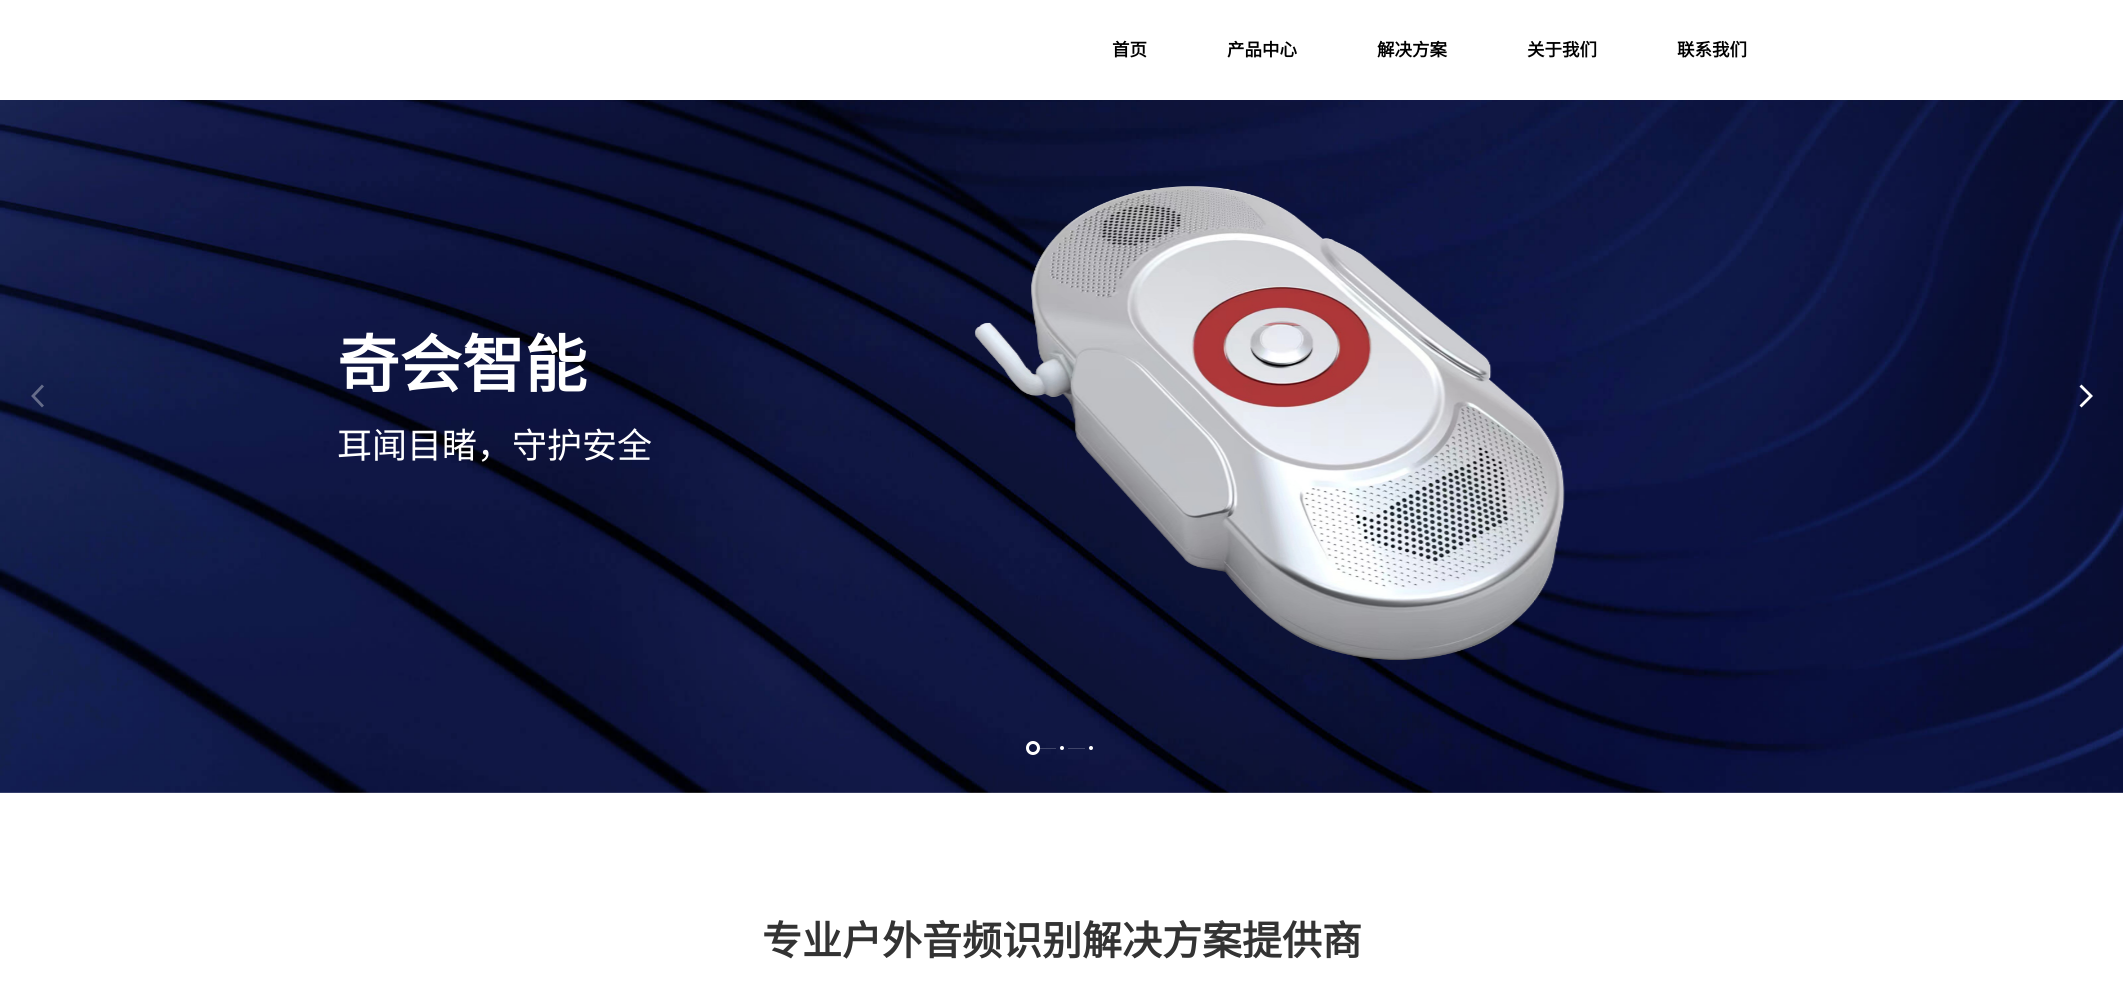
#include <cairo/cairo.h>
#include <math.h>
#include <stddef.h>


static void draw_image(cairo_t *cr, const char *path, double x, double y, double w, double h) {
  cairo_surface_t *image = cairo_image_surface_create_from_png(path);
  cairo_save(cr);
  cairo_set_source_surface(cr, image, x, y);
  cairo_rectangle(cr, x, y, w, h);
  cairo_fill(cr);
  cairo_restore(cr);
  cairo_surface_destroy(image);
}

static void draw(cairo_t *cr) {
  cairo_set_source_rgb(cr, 1, 1, 1);
  cairo_paint(cr);
  draw_image(cr, "images/1.png", 0, 100, 2123, 693);
  cairo_new_path(cr);
  cairo_move_to(cr, 42, 386.5);
  cairo_line_to(cr, 33, 396);
  cairo_line_to(cr, 42, 405.5);
  cairo_set_source_rgba(cr, 1, 1, 1, 0.35);
  cairo_set_line_width(cr, 2.8);
  cairo_set_line_cap(cr, CAIRO_LINE_CAP_SQUARE);
  cairo_stroke(cr);
  draw_image(cr, "images/2.png", 974, 186, 591, 474);
  cairo_new_path(cr);
  cairo_move_to(cr, 2081.5, 386.5);
  cairo_line_to(cr, 2091, 396);
  cairo_line_to(cr, 2081.5, 405.5);
  cairo_set_source_rgb(cr, 1, 1, 1);
  cairo_stroke(cr);
  cairo_set_source_rgb(cr, 63 / 255.0, 69 / 255.0, 104 / 255.0);
  cairo_rectangle(cr, 1039, 748, 17, 1);
  cairo_fill(cr);
  cairo_arc(cr, 1033, 748, 5.5, 0, 2 * M_PI);
  cairo_set_source_rgb(cr, 1, 1, 1);
  cairo_set_line_width(cr, 3);
  cairo_set_line_cap(cr, CAIRO_LINE_CAP_BUTT);
  cairo_stroke(cr);
  cairo_arc(cr, 1062, 748, 2, 0, 2 * M_PI);
  cairo_fill(cr);
  cairo_set_source_rgb(cr, 64 / 255.0, 69 / 255.0, 105 / 255.0);
  cairo_rectangle(cr, 1068, 748, 17, 1);
  cairo_fill(cr);
  cairo_set_source_rgb(cr, 1, 1, 1);
  cairo_arc(cr, 1091, 748, 2, 0, 2 * M_PI);
  cairo_fill(cr);
  cairo_select_font_face(cr, "Noto Sans CJK SC", CAIRO_FONT_SLANT_NORMAL, CAIRO_FONT_WEIGHT_BOLD);
  cairo_set_font_size(cr, 17.5);
  cairo_set_source_rgb(cr, 0, 0, 0);
  cairo_move_to(cr, 1112, 56);
  cairo_show_text(cr, "首页");
  cairo_move_to(cr, 1227, 56);
  cairo_show_text(cr, "产品中心");
  cairo_move_to(cr, 1377, 56);
  cairo_show_text(cr, "解决方案");
  cairo_move_to(cr, 1527, 56);
  cairo_show_text(cr, "关于我们");
  cairo_move_to(cr, 1677, 56);
  cairo_show_text(cr, "联系我们");
  cairo_set_font_size(cr, 62.5);
  cairo_set_source_rgb(cr, 1, 1, 1);
  cairo_move_to(cr, 337, 387);
  cairo_show_text(cr, "奇会智能");
  cairo_select_font_face(cr, "Noto Sans CJK SC", CAIRO_FONT_SLANT_NORMAL, CAIRO_FONT_WEIGHT_NORMAL);
  cairo_set_font_size(cr, 35);
  cairo_move_to(cr, 337, 458);
  cairo_show_text(cr, "耳闻目睹，守护安全");
  cairo_select_font_face(cr, "Noto Sans CJK SC", CAIRO_FONT_SLANT_NORMAL, CAIRO_FONT_WEIGHT_BOLD);
  cairo_set_font_size(cr, 40);
  cairo_set_source_rgb(cr, 51 / 255.0, 51 / 255.0, 51 / 255.0);
  cairo_move_to(cr, 762, 955);
  cairo_show_text(cr, "专业户外音频识别解决方案提供商");
}

int main(void) {
  cairo_surface_t *surface = cairo_image_surface_create(CAIRO_FORMAT_RGB24, 2123, 991);
  cairo_t *cr = cairo_create(surface);
  cairo_font_options_t *options = cairo_font_options_create();
  cairo_font_options_set_hint_metrics(options, CAIRO_HINT_METRICS_OFF);
  cairo_font_options_set_hint_style(options, CAIRO_HINT_STYLE_NONE);
  cairo_set_font_options(cr, options);
  cairo_set_miter_limit(cr, 4);
  draw(cr);
  cairo_surface_write_to_png(surface, "out.png");
  cairo_font_options_destroy(options);
  cairo_destroy(cr);
  cairo_surface_destroy(surface);
  return 0;
}
